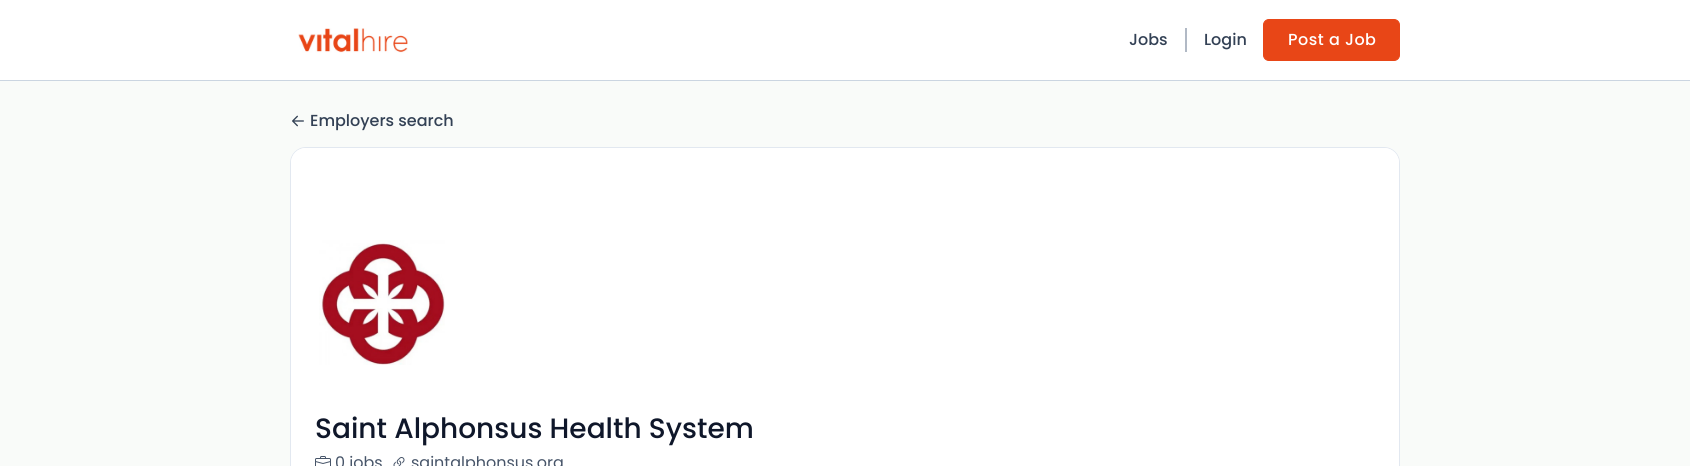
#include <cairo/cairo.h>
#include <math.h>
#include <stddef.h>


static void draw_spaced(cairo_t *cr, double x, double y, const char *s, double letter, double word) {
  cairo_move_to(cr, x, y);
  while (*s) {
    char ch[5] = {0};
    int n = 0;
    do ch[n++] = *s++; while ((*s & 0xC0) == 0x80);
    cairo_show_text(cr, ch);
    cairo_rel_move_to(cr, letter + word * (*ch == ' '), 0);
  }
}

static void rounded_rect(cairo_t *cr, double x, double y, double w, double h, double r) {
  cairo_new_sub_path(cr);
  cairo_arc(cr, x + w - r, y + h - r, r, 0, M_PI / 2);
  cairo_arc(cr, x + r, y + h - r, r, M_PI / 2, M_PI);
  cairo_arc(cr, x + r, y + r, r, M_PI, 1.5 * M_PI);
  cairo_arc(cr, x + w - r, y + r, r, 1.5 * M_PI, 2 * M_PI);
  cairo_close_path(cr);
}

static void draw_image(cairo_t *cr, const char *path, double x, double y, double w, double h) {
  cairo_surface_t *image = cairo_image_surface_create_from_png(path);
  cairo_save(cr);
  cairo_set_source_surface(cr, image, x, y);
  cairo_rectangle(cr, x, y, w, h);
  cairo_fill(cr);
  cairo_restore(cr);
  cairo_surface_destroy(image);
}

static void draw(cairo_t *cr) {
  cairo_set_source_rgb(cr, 249 / 255.0, 251 / 255.0, 249 / 255.0);
  cairo_paint(cr);
  cairo_set_source_rgb(cr, 1, 1, 1);
  cairo_rectangle(cr, 0, 0, 1690, 80);
  cairo_fill(cr);
  cairo_set_source_rgb(cr, 203 / 255.0, 213 / 255.0, 225 / 255.0);
  cairo_rectangle(cr, 0, 80, 1690, 1);
  cairo_fill(cr);
  draw_image(cr, "images/1.png", 298, 28, 110, 25);
  cairo_new_path(cr);
  cairo_move_to(cr, 1186, 28);
  cairo_line_to(cr, 1186, 52);
  cairo_set_source_rgb(cr, 100 / 255.0, 116 / 255.0, 139 / 255.0);
  cairo_set_line_width(cr, 1);
  cairo_stroke(cr);
  cairo_set_source_rgb(cr, 232 / 255.0, 70 / 255.0, 23 / 255.0);
  rounded_rect(cr, 1263.5, 19.5, 136, 41, 5.5);
  cairo_fill_preserve(cr);
  cairo_stroke(cr);
  draw_image(cr, "images/2.png", 292, 115, 12, 12);
  cairo_set_source_rgb(cr, 1, 1, 1);
  rounded_rect(cr, 290.5, 147.5, 1109, 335, 15.5);
  cairo_fill_preserve(cr);
  cairo_set_source_rgb(cr, 226 / 255.0, 232 / 255.0, 240 / 255.0);
  cairo_stroke(cr);
  cairo_set_source_rgb(cr, 1, 1, 1);
  cairo_new_path(cr);
  cairo_move_to(cr, 306, 148);
  cairo_line_to(cr, 1384, 148);
  cairo_curve_to(cr, 1392.5, 148, 1399, 154.5, 1399, 163);
  cairo_line_to(cr, 1399, 348);
  cairo_line_to(cr, 291, 348);
  cairo_line_to(cr, 291, 163);
  cairo_curve_to(cr, 291, 154.5, 297.5, 148, 306, 148);
  cairo_close_path(cr);
  cairo_fill(cr);
  draw_image(cr, "images/3.png", 319, 240, 126, 125);
  draw_image(cr, "images/4.png", 315, 456, 16, 10);
  draw_image(cr, "images/5.png", 393, 457, 12, 9);
  cairo_select_font_face(cr, "Poppins Medium", CAIRO_FONT_SLANT_NORMAL, CAIRO_FONT_WEIGHT_NORMAL);
  cairo_set_font_size(cr, 16);
  cairo_set_source_rgb(cr, 51 / 255.0, 65 / 255.0, 85 / 255.0);
  cairo_move_to(cr, 1129, 45);
  cairo_show_text(cr, "Jobs");
  cairo_move_to(cr, 1204, 45);
  cairo_show_text(cr, "Login");
  cairo_set_source_rgb(cr, 1, 1, 1);
  draw_spaced(cr, 1288, 45, "Post a Job", 0.5, 0);
  cairo_set_source_rgb(cr, 51 / 255.0, 65 / 255.0, 85 / 255.0);
  cairo_move_to(cr, 310, 126);
  cairo_show_text(cr, "Employers search");
  cairo_set_font_size(cr, 28);
  cairo_set_source_rgb(cr, 15 / 255.0, 23 / 255.0, 42 / 255.0);
  cairo_move_to(cr, 315, 438);
  cairo_show_text(cr, "Saint Alphonsus Health System");
  cairo_select_font_face(cr, "Poppins", CAIRO_FONT_SLANT_NORMAL, CAIRO_FONT_WEIGHT_NORMAL);
  cairo_set_font_size(cr, 16);
  cairo_set_source_rgb(cr, 71 / 255.0, 85 / 255.0, 105 / 255.0);
  cairo_move_to(cr, 335, 468);
  cairo_show_text(cr, "0 jobs");
  cairo_move_to(cr, 411, 468);
  cairo_show_text(cr, "saintalphonsus.org");
}

int main(void) {
  cairo_surface_t *surface = cairo_image_surface_create(CAIRO_FORMAT_RGB24, 1690, 466);
  cairo_t *cr = cairo_create(surface);
  cairo_font_options_t *options = cairo_font_options_create();
  cairo_font_options_set_hint_metrics(options, CAIRO_HINT_METRICS_OFF);
  cairo_font_options_set_hint_style(options, CAIRO_HINT_STYLE_NONE);
  cairo_set_font_options(cr, options);
  cairo_set_miter_limit(cr, 4);
  draw(cr);
  cairo_surface_write_to_png(surface, "out.png");
  cairo_font_options_destroy(options);
  cairo_destroy(cr);
  cairo_surface_destroy(surface);
  return 0;
}
